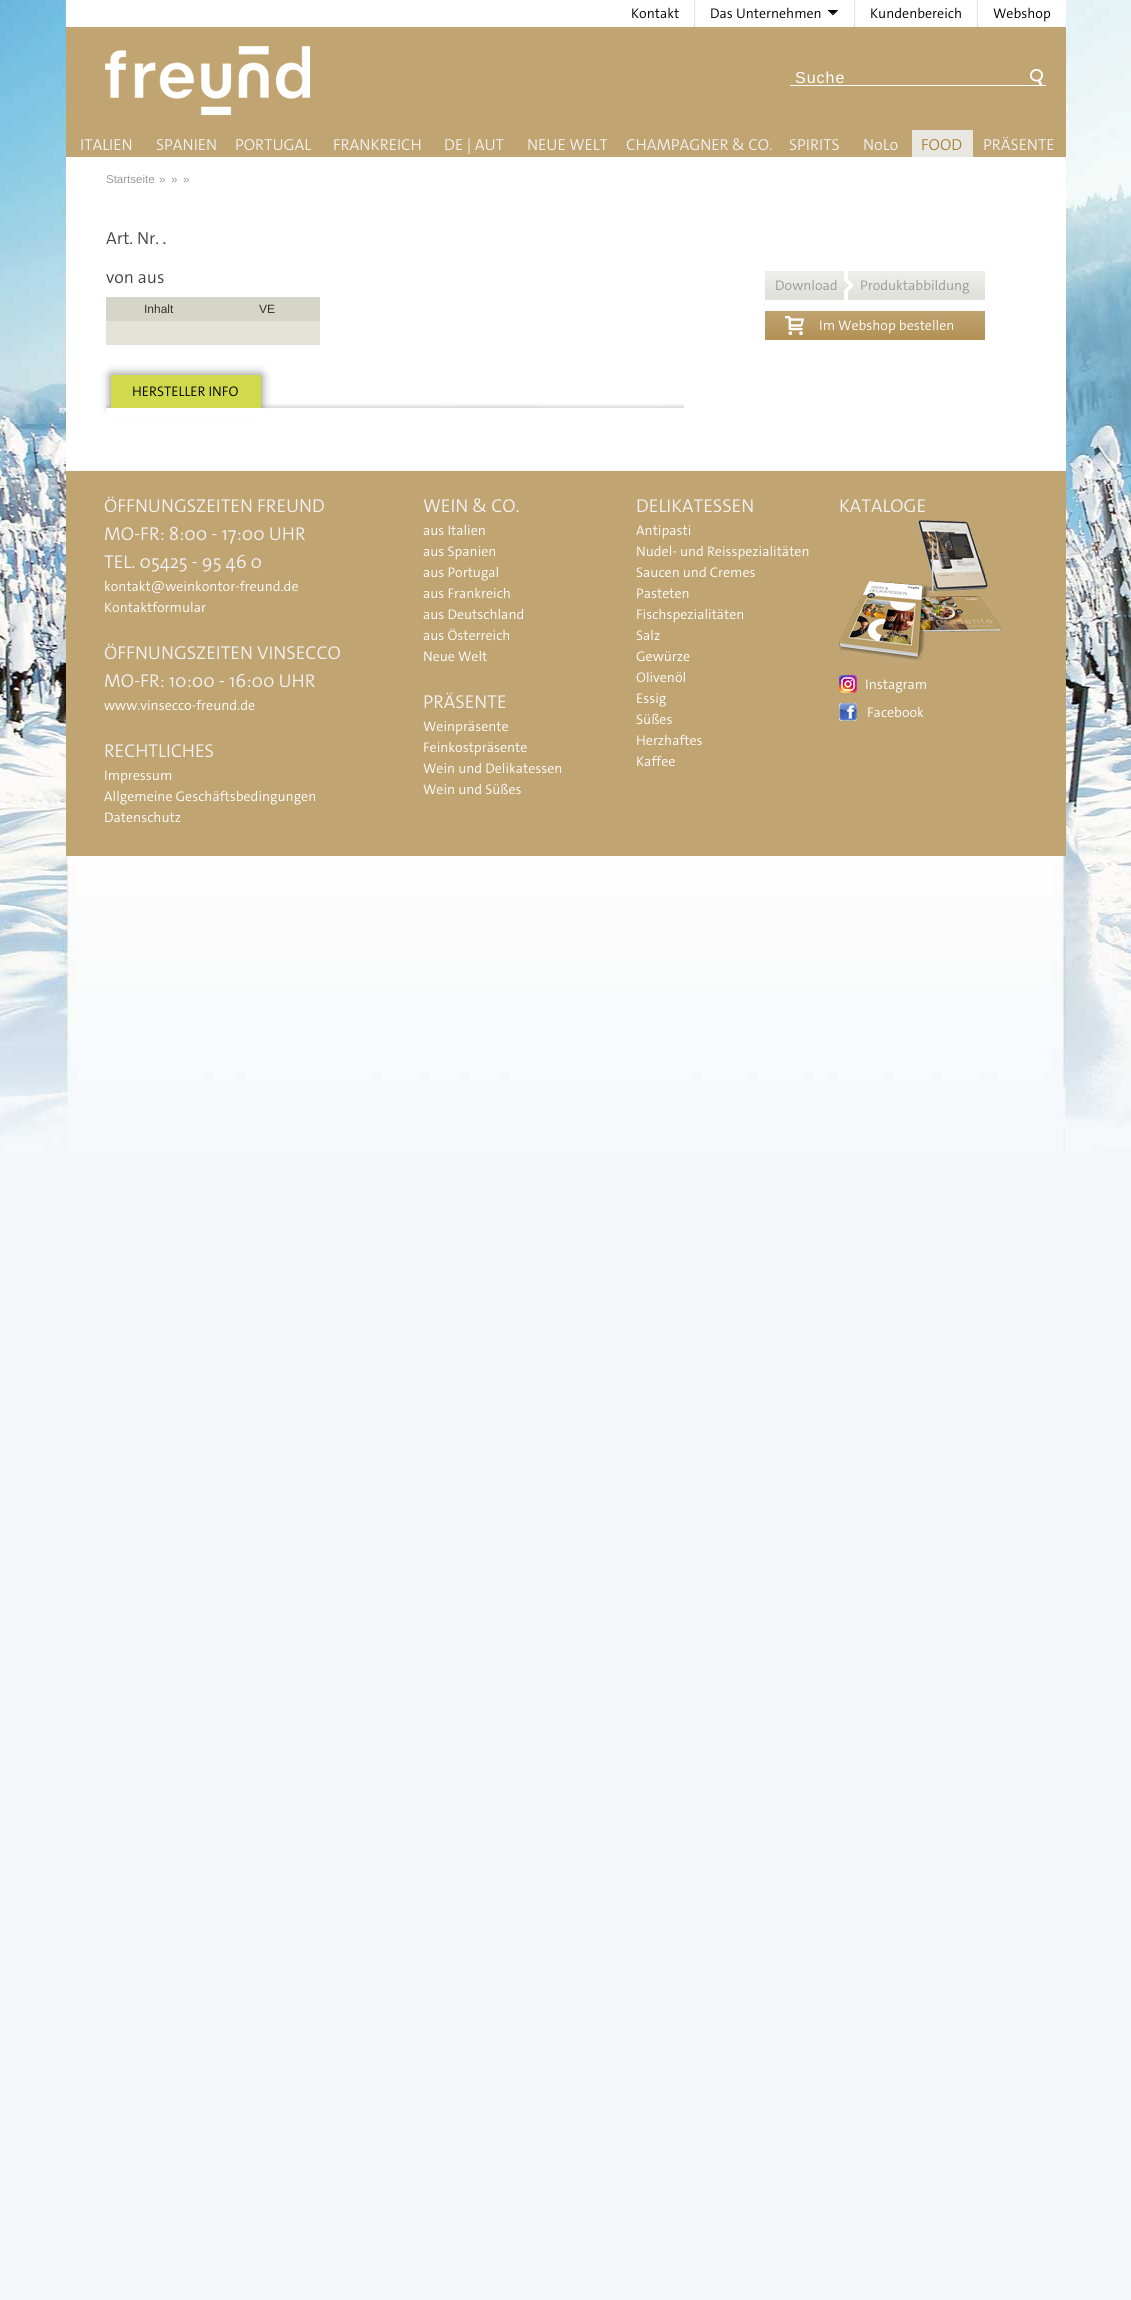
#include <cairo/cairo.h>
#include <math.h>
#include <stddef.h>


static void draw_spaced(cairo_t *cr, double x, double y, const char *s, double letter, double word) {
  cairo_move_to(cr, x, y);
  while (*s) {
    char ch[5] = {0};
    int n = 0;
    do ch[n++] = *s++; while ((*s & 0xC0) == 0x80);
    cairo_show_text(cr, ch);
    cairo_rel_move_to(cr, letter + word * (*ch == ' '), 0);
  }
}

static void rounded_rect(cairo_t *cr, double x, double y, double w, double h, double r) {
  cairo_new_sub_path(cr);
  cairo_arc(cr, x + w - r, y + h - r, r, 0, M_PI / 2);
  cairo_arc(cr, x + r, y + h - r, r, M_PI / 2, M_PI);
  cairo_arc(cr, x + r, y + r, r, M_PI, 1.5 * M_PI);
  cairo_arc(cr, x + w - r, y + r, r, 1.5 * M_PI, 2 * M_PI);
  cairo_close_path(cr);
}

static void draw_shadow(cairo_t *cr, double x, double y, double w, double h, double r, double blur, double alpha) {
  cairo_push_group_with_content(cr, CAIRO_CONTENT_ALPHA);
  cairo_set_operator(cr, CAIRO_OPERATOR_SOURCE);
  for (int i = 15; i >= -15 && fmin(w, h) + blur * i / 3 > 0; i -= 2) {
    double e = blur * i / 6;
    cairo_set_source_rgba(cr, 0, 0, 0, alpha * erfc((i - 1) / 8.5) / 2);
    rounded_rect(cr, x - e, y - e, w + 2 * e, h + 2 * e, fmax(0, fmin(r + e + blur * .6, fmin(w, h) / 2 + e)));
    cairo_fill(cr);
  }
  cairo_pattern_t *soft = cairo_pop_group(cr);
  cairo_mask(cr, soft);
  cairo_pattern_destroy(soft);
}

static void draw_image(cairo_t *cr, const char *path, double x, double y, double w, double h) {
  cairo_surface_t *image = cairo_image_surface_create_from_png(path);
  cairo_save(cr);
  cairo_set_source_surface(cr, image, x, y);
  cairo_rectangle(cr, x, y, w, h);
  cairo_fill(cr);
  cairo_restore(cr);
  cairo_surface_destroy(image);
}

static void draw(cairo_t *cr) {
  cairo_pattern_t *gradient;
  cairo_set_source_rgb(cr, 244 / 255.0, 248 / 255.0, 251 / 255.0);
  cairo_paint(cr);
  draw_image(cr, "images/1.png", 0, 0, 1131, 1152);
  cairo_set_source_rgb(cr, 1, 1, 1);
  cairo_rectangle(cr, 66, 157, 1000, 314);
  cairo_fill(cr);
  cairo_rectangle(cr, 66, 0, 1000, 27);
  cairo_fill(cr);
  cairo_new_path(cr);
  cairo_move_to(cr, 694.5, 0);
  cairo_line_to(cr, 694.5, 27);
  cairo_set_source_rgb(cr, 204 / 255.0, 204 / 255.0, 204 / 255.0);
  cairo_set_line_width(cr, 1);
  cairo_set_dash(cr, (double[]){1, 1}, 2, 0);
  cairo_stroke(cr);
  draw_image(cr, "images/2.png", 827, 10, 12, 6);
  cairo_new_path(cr);
  cairo_move_to(cr, 854.5, 0);
  cairo_line_to(cr, 854.5, 27);
  cairo_stroke(cr);
  cairo_new_path(cr);
  cairo_move_to(cr, 977.5, 0);
  cairo_line_to(cr, 977.5, 27);
  cairo_stroke(cr);
  cairo_set_source_rgb(cr, 192 / 255.0, 164 / 255.0, 114 / 255.0);
  cairo_rectangle(cr, 66, 27, 1000, 130);
  cairo_fill(cr);
  draw_image(cr, "images/3.png", 105, 46, 205, 69);
  cairo_set_source_rgb(cr, 1, 1, 1);
  cairo_rectangle(cr, 790, 85, 256, 1);
  cairo_fill(cr);
  draw_image(cr, "images/4.png", 1030, 69, 13, 16);
  cairo_set_source_rgb(cr, 232 / 255.0, 231 / 255.0, 225 / 255.0);
  cairo_rectangle(cr, 912, 130, 61, 27);
  cairo_fill(cr);
  cairo_set_source_rgb(cr, 213 / 255.0, 213 / 255.0, 200 / 255.0);
  cairo_rectangle(cr, 106, 297, 214, 24);
  cairo_fill(cr);
  cairo_set_source_rgb(cr, 227 / 255.0, 227 / 255.0, 218 / 255.0);
  cairo_rectangle(cr, 106, 321, 214, 24);
  cairo_fill(cr);
  draw_image(cr, "images/5.png", 106, 404, 578, 4);
  cairo_set_source_rgb(cr, 102 / 255.0, 102 / 255.0, 102 / 255.0);
  draw_shadow(cr, 111, 375, 150, 33, 0, 5, 0.9);
  cairo_set_source_rgb(cr, 209 / 255.0, 217 / 255.0, 77 / 255.0);
  cairo_rectangle(cr, 111, 375, 150, 33);
  cairo_fill(cr);
  cairo_set_source_rgb(cr, 1, 1, 1);
  cairo_rectangle(cr, 106, 408, 164, 10);
  cairo_fill(cr);
  draw_image(cr, "images/6.png", 765, 271, 220, 29);
  gradient = cairo_pattern_create_linear(875, 311, 875, 340);
  cairo_pattern_add_color_stop_rgba(gradient, 0, 192 / 255.0, 164 / 255.0, 114 / 255.0, 1);
  cairo_pattern_add_color_stop_rgba(gradient, 1, 179 / 255.0, 144 / 255.0, 83 / 255.0, 1);
  cairo_set_source(cr, gradient);
  cairo_pattern_destroy(gradient);
  cairo_rectangle(cr, 765, 311, 220, 29);
  cairo_fill(cr);
  draw_image(cr, "images/7.png", 785, 316, 19, 19);
  cairo_set_source_rgb(cr, 192 / 255.0, 164 / 255.0, 114 / 255.0);
  cairo_rectangle(cr, 66, 471, 1000, 385);
  cairo_fill(cr);
  draw_image(cr, "images/8.png", 839, 520, 163, 143);
  draw_image(cr, "images/9.png", 839, 675, 18, 18);
  draw_image(cr, "images/10.png", 839, 703, 18, 18);
  cairo_select_font_face(cr, "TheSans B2 Light", CAIRO_FONT_SLANT_NORMAL, CAIRO_FONT_WEIGHT_NORMAL);
  cairo_set_font_size(cr, 14);
  cairo_set_source_rgb(cr, 0, 0, 0);
  cairo_move_to(cr, 631, 18);
  cairo_show_text(cr, "Kontakt");
  cairo_move_to(cr, 710, 18);
  cairo_show_text(cr, "Das Unternehmen");
  cairo_move_to(cr, 870, 18);
  cairo_show_text(cr, "Kundenbereich");
  cairo_move_to(cr, 993, 18);
  cairo_show_text(cr, "Webshop");
  cairo_select_font_face(cr, "Liberation Sans", CAIRO_FONT_SLANT_NORMAL, CAIRO_FONT_WEIGHT_NORMAL);
  cairo_set_font_size(cr, 16);
  cairo_set_source_rgb(cr, 1, 1, 1);
  draw_spaced(cr, 795, 83, "Suche", 1, 0);
  cairo_select_font_face(cr, "TheSans B2 Light", CAIRO_FONT_SLANT_NORMAL, CAIRO_FONT_WEIGHT_NORMAL);
  cairo_set_source_rgb(cr, 242 / 255.0, 242 / 255.0, 242 / 255.0);
  cairo_move_to(cr, 80, 150);
  cairo_show_text(cr, "ITALIEN");
  cairo_move_to(cr, 156, 150);
  cairo_show_text(cr, "SPANIEN");
  cairo_move_to(cr, 235, 150);
  cairo_show_text(cr, "PORTUGAL");
  cairo_move_to(cr, 333, 150);
  cairo_show_text(cr, "FRANKREICH");
  cairo_move_to(cr, 444, 150);
  cairo_show_text(cr, "DE | AUT");
  cairo_move_to(cr, 527, 150);
  cairo_show_text(cr, "NEUE WELT");
  cairo_move_to(cr, 626, 150);
  cairo_show_text(cr, "CHAMPAGNER & CO.");
  cairo_move_to(cr, 789, 150);
  cairo_show_text(cr, "SPIRITS");
  cairo_move_to(cr, 863, 150);
  cairo_show_text(cr, "NoLo");
  cairo_set_source_rgb(cr, 170 / 255.0, 130 / 255.0, 58 / 255.0);
  cairo_move_to(cr, 921, 150);
  cairo_show_text(cr, "FOOD");
  cairo_set_source_rgb(cr, 242 / 255.0, 242 / 255.0, 242 / 255.0);
  cairo_move_to(cr, 983, 150);
  cairo_show_text(cr, "PRÄSENTE");
  cairo_select_font_face(cr, "Liberation Sans", CAIRO_FONT_SLANT_NORMAL, CAIRO_FONT_WEIGHT_NORMAL);
  cairo_set_font_size(cr, 11.5);
  cairo_set_source_rgb(cr, 153 / 255.0, 153 / 255.0, 153 / 255.0);
  cairo_move_to(cr, 106, 183);
  cairo_show_text(cr, "Startseite");
  cairo_move_to(cr, 159, 183);
  cairo_show_text(cr, "»");
  cairo_move_to(cr, 171, 183);
  cairo_show_text(cr, "»");
  cairo_move_to(cr, 183, 183);
  cairo_show_text(cr, "»");
  cairo_select_font_face(cr, "TheSans B2 Light", CAIRO_FONT_SLANT_NORMAL, CAIRO_FONT_WEIGHT_NORMAL);
  cairo_set_font_size(cr, 17.5);
  cairo_set_source_rgb(cr, 68 / 255.0, 68 / 255.0, 68 / 255.0);
  cairo_move_to(cr, 106, 244);
  cairo_show_text(cr, "Art. Nr.");
  cairo_select_font_face(cr, "Liberation Sans", CAIRO_FONT_SLANT_NORMAL, CAIRO_FONT_WEIGHT_NORMAL);
  cairo_move_to(cr, 162, 244);
  cairo_show_text(cr, ".");
  cairo_select_font_face(cr, "TheSans B2 Light", CAIRO_FONT_SLANT_NORMAL, CAIRO_FONT_WEIGHT_NORMAL);
  cairo_move_to(cr, 106, 283);
  cairo_show_text(cr, "von aus");
  cairo_select_font_face(cr, "Liberation Sans", CAIRO_FONT_SLANT_NORMAL, CAIRO_FONT_WEIGHT_NORMAL);
  cairo_set_font_size(cr, 12);
  cairo_set_source_rgb(cr, 51 / 255.0, 51 / 255.0, 51 / 255.0);
  cairo_move_to(cr, 144, 313);
  cairo_show_text(cr, "Inhalt");
  cairo_move_to(cr, 259, 313);
  cairo_show_text(cr, "VE");
  cairo_select_font_face(cr, "TheSans B2 Light", CAIRO_FONT_SLANT_NORMAL, CAIRO_FONT_WEIGHT_NORMAL);
  cairo_set_font_size(cr, 14);
  cairo_set_source_rgb(cr, 0, 0, 0);
  cairo_move_to(cr, 132, 396);
  cairo_show_text(cr, "HERSTELLER INFO");
  cairo_set_source_rgb(cr, 153 / 255.0, 153 / 255.0, 153 / 255.0);
  cairo_move_to(cr, 775, 290);
  cairo_show_text(cr, "Download");
  cairo_move_to(cr, 860, 290);
  cairo_show_text(cr, "Produktabbildung");
  cairo_set_source_rgb(cr, 1, 1, 1);
  cairo_move_to(cr, 819, 330);
  cairo_show_text(cr, "Im Webshop bestellen");
  cairo_set_font_size(cr, 18.7);
  cairo_set_source_rgb(cr, 242 / 255.0, 242 / 255.0, 242 / 255.0);
  cairo_move_to(cr, 104, 512);
  cairo_show_text(cr, "ÖFFNUNGSZEITEN FREUND");
  cairo_move_to(cr, 104, 540);
  cairo_show_text(cr, "MO-FR: 8:00 - 17:00 UHR");
  cairo_move_to(cr, 104, 568);
  cairo_show_text(cr, "TEL. 05425 - 95 46 0");
  cairo_set_font_size(cr, 14);
  cairo_set_source_rgb(cr, 1, 1, 1);
  cairo_move_to(cr, 104, 591);
  cairo_show_text(cr, "kontakt@weinkontor-freund.de");
  cairo_move_to(cr, 104, 612);
  cairo_show_text(cr, "Kontaktformular");
  cairo_set_font_size(cr, 18.7);
  cairo_set_source_rgb(cr, 242 / 255.0, 242 / 255.0, 242 / 255.0);
  cairo_move_to(cr, 104, 659);
  cairo_show_text(cr, "ÖFFNUNGSZEITEN VINSECCO");
  cairo_move_to(cr, 104, 687);
  cairo_show_text(cr, "MO-FR: 10:00 - 16:00 UHR");
  cairo_set_font_size(cr, 14);
  cairo_set_source_rgb(cr, 1, 1, 1);
  cairo_move_to(cr, 104, 710);
  cairo_show_text(cr, "www.vinsecco-freund.de");
  cairo_set_font_size(cr, 18.7);
  cairo_set_source_rgb(cr, 242 / 255.0, 242 / 255.0, 242 / 255.0);
  cairo_move_to(cr, 104, 757);
  cairo_show_text(cr, "RECHTLICHES");
  cairo_set_font_size(cr, 14);
  cairo_set_source_rgb(cr, 1, 1, 1);
  cairo_move_to(cr, 104, 780);
  cairo_show_text(cr, "Impressum");
  cairo_move_to(cr, 104, 801);
  cairo_show_text(cr, "Allgemeine Geschäftsbedingungen");
  cairo_move_to(cr, 104, 822);
  cairo_show_text(cr, "Datenschutz");
  cairo_set_font_size(cr, 18.7);
  cairo_set_source_rgb(cr, 242 / 255.0, 242 / 255.0, 242 / 255.0);
  cairo_move_to(cr, 423, 512);
  cairo_show_text(cr, "WEIN & CO.");
  cairo_set_font_size(cr, 14);
  cairo_set_source_rgb(cr, 1, 1, 1);
  cairo_move_to(cr, 423, 535);
  cairo_show_text(cr, "aus Italien");
  cairo_move_to(cr, 423, 556);
  cairo_show_text(cr, "aus Spanien");
  cairo_move_to(cr, 423, 577);
  cairo_show_text(cr, "aus Portugal");
  cairo_move_to(cr, 423, 598);
  cairo_show_text(cr, "aus Frankreich");
  cairo_move_to(cr, 423, 619);
  cairo_show_text(cr, "aus Deutschland");
  cairo_move_to(cr, 423, 640);
  cairo_show_text(cr, "aus Österreich");
  cairo_move_to(cr, 423, 661);
  cairo_show_text(cr, "Neue Welt");
  cairo_set_font_size(cr, 18.7);
  cairo_set_source_rgb(cr, 242 / 255.0, 242 / 255.0, 242 / 255.0);
  cairo_move_to(cr, 423, 708);
  cairo_show_text(cr, "PRÄSENTE");
  cairo_set_font_size(cr, 14);
  cairo_set_source_rgb(cr, 1, 1, 1);
  cairo_move_to(cr, 423, 731);
  cairo_show_text(cr, "Weinpräsente");
  cairo_move_to(cr, 423, 752);
  cairo_show_text(cr, "Feinkostpräsente");
  cairo_move_to(cr, 423, 773);
  cairo_show_text(cr, "Wein und Delikatessen");
  cairo_move_to(cr, 423, 794);
  cairo_show_text(cr, "Wein und Süßes");
  cairo_set_font_size(cr, 18.7);
  cairo_set_source_rgb(cr, 242 / 255.0, 242 / 255.0, 242 / 255.0);
  cairo_move_to(cr, 636, 512);
  cairo_show_text(cr, "DELIKATESSEN");
  cairo_set_font_size(cr, 14);
  cairo_set_source_rgb(cr, 1, 1, 1);
  cairo_move_to(cr, 636, 535);
  cairo_show_text(cr, "Antipasti");
  cairo_move_to(cr, 636, 556);
  cairo_show_text(cr, "Nudel- und Reisspezialitäten");
  cairo_move_to(cr, 636, 577);
  cairo_show_text(cr, "Saucen und Cremes");
  cairo_move_to(cr, 636, 598);
  cairo_show_text(cr, "Pasteten");
  cairo_move_to(cr, 636, 619);
  cairo_show_text(cr, "Fischspezialitäten");
  cairo_move_to(cr, 636, 640);
  cairo_show_text(cr, "Salz");
  cairo_move_to(cr, 636, 661);
  cairo_show_text(cr, "Gewürze");
  cairo_move_to(cr, 636, 682);
  cairo_show_text(cr, "Olivenöl");
  cairo_move_to(cr, 636, 703);
  cairo_show_text(cr, "Essig");
  cairo_move_to(cr, 636, 724);
  cairo_show_text(cr, "Süßes");
  cairo_move_to(cr, 636, 745);
  cairo_show_text(cr, "Herzhaftes");
  cairo_move_to(cr, 636, 766);
  cairo_show_text(cr, "Kaffee");
  cairo_set_font_size(cr, 18.7);
  cairo_set_source_rgb(cr, 242 / 255.0, 242 / 255.0, 242 / 255.0);
  cairo_move_to(cr, 839, 512);
  cairo_show_text(cr, "KATALOGE");
  cairo_set_font_size(cr, 14);
  cairo_set_source_rgb(cr, 1, 1, 1);
  cairo_move_to(cr, 865, 689);
  cairo_show_text(cr, "Instagram");
  cairo_move_to(cr, 867, 717);
  cairo_show_text(cr, "Facebook");
}

int main(void) {
  cairo_surface_t *surface = cairo_image_surface_create(CAIRO_FORMAT_RGB24, 1131, 2300);
  cairo_t *cr = cairo_create(surface);
  cairo_font_options_t *options = cairo_font_options_create();
  cairo_font_options_set_hint_metrics(options, CAIRO_HINT_METRICS_OFF);
  cairo_font_options_set_hint_style(options, CAIRO_HINT_STYLE_NONE);
  cairo_set_font_options(cr, options);
  cairo_set_miter_limit(cr, 4);
  draw(cr);
  cairo_surface_write_to_png(surface, "out.png");
  cairo_font_options_destroy(options);
  cairo_destroy(cr);
  cairo_surface_destroy(surface);
  return 0;
}
